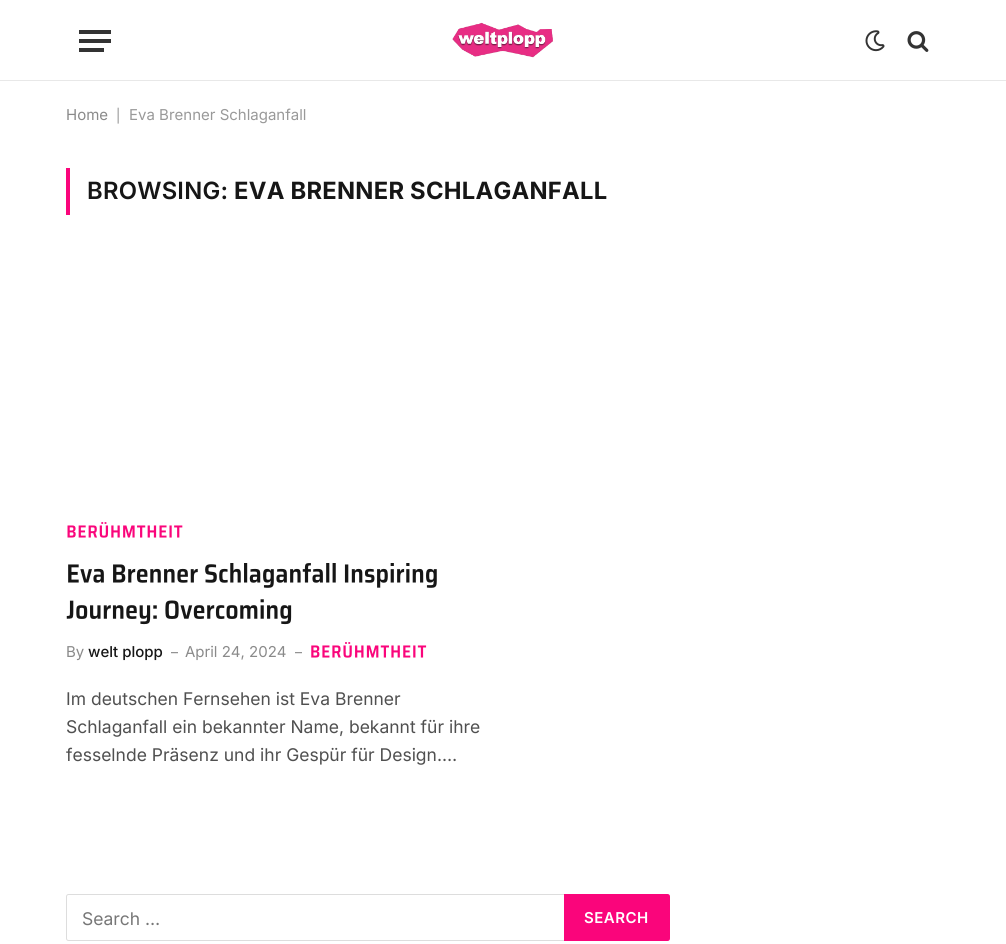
#include <cairo/cairo.h>
#include <math.h>
#include <stddef.h>


static void draw_spaced(cairo_t *cr, double x, double y, const char *s, double letter, double word) {
  cairo_move_to(cr, x, y);
  while (*s) {
    char ch[5] = {0};
    int n = 0;
    do ch[n++] = *s++; while ((*s & 0xC0) == 0x80);
    cairo_show_text(cr, ch);
    cairo_rel_move_to(cr, letter + word * (*ch == ' '), 0);
  }
}

static void rounded_rect(cairo_t *cr, double x, double y, double w, double h, double r) {
  cairo_new_sub_path(cr);
  cairo_arc(cr, x + w - r, y + h - r, r, 0, M_PI / 2);
  cairo_arc(cr, x + r, y + h - r, r, M_PI / 2, M_PI);
  cairo_arc(cr, x + r, y + r, r, M_PI, 1.5 * M_PI);
  cairo_arc(cr, x + w - r, y + r, r, 1.5 * M_PI, 2 * M_PI);
  cairo_close_path(cr);
}

static void draw_image(cairo_t *cr, const char *path, double x, double y, double w, double h) {
  cairo_surface_t *image = cairo_image_surface_create_from_png(path);
  cairo_save(cr);
  cairo_set_source_surface(cr, image, x, y);
  cairo_rectangle(cr, x, y, w, h);
  cairo_fill(cr);
  cairo_restore(cr);
  cairo_surface_destroy(image);
}

static void draw(cairo_t *cr) {
  cairo_set_source_rgb(cr, 1, 1, 1);
  cairo_paint(cr);
  cairo_set_source_rgb(cr, 232 / 255.0, 232 / 255.0, 232 / 255.0);
  cairo_rectangle(cr, 0, 80, 1006, 1);
  cairo_fill(cr);
  cairo_set_source_rgb(cr, 51 / 255.0, 51 / 255.0, 51 / 255.0);
  cairo_rectangle(cr, 79, 48, 25, 4);
  cairo_fill(cr);
  cairo_rectangle(cr, 79, 30, 32, 4);
  cairo_fill(cr);
  cairo_rectangle(cr, 79, 39, 32, 4);
  cairo_fill(cr);
  draw_image(cr, "images/1.png", 452, 22, 101, 36);
  draw_image(cr, "images/2.png", 865, 30, 20, 22);
  draw_image(cr, "images/3.png", 907, 31, 22, 21);
  cairo_set_source_rgb(cr, 250 / 255.0, 5 / 255.0, 123 / 255.0);
  cairo_rectangle(cr, 66, 168, 4, 47);
  cairo_fill(cr);
  draw_image(cr, "images/4.png", 67, 522, 116, 16);
  draw_image(cr, "images/5.png", 68, 563, 369, 25);
  draw_image(cr, "images/6.png", 66, 599, 226, 26);
  draw_image(cr, "images/7.png", 311, 642, 116, 16);
  rounded_rect(cr, 66.5, 894.5, 499, 46, 2);
  cairo_set_source_rgb(cr, 221 / 255.0, 221 / 255.0, 221 / 255.0);
  cairo_set_line_width(cr, 1);
  cairo_stroke(cr);
  cairo_set_source_rgb(cr, 250 / 255.0, 5 / 255.0, 123 / 255.0);
  cairo_new_path(cr);
  cairo_move_to(cr, 564, 894);
  cairo_line_to(cr, 667.5, 894);
  cairo_curve_to(cr, 669, 894, 670, 895, 670, 896.5);
  cairo_line_to(cr, 670, 938.5);
  cairo_curve_to(cr, 670, 940, 669, 941, 667.5, 941);
  cairo_line_to(cr, 564, 941);
  cairo_close_path(cr);
  cairo_fill(cr);
  cairo_select_font_face(cr, "Inter", CAIRO_FONT_SLANT_NORMAL, CAIRO_FONT_WEIGHT_NORMAL);
  cairo_set_font_size(cr, 15);
  cairo_set_source_rgb(cr, 138 / 255.0, 138 / 255.0, 138 / 255.0);
  cairo_move_to(cr, 66, 120);
  cairo_show_text(cr, "Home");
  cairo_select_font_face(cr, "Liberation Sans", CAIRO_FONT_SLANT_NORMAL, CAIRO_FONT_WEIGHT_NORMAL);
  cairo_set_font_size(cr, 17);
  cairo_set_source_rgb(cr, 173 / 255.0, 173 / 255.0, 173 / 255.0);
  cairo_move_to(cr, 116, 120);
  cairo_show_text(cr, "|");
  cairo_select_font_face(cr, "Inter", CAIRO_FONT_SLANT_NORMAL, CAIRO_FONT_WEIGHT_NORMAL);
  cairo_set_font_size(cr, 15);
  cairo_set_source_rgb(cr, 153 / 255.0, 153 / 255.0, 153 / 255.0);
  cairo_move_to(cr, 129, 120);
  cairo_show_text(cr, "Eva Brenner Schlaganfall");
  cairo_select_font_face(cr, "Inter SemiBold", CAIRO_FONT_SLANT_NORMAL, CAIRO_FONT_WEIGHT_NORMAL);
  cairo_set_font_size(cr, 23.75);
  cairo_set_source_rgb(cr, 22 / 255.0, 22 / 255.0, 22 / 255.0);
  draw_spaced(cr, 87, 199, "BROWSING:", 0.25, 0);
  cairo_select_font_face(cr, "Inter", CAIRO_FONT_SLANT_NORMAL, CAIRO_FONT_WEIGHT_BOLD);
  draw_spaced(cr, 234, 199, "EVA BRENNER SCHLAGANFALL", 0.25, 0);
  cairo_select_font_face(cr, "Inter", CAIRO_FONT_SLANT_NORMAL, CAIRO_FONT_WEIGHT_NORMAL);
  cairo_set_font_size(cr, 15);
  cairo_set_source_rgb(cr, 138 / 255.0, 138 / 255.0, 138 / 255.0);
  cairo_move_to(cr, 66, 657);
  cairo_show_text(cr, "By");
  cairo_select_font_face(cr, "Inter Medium", CAIRO_FONT_SLANT_NORMAL, CAIRO_FONT_WEIGHT_NORMAL);
  cairo_set_source_rgb(cr, 22 / 255.0, 22 / 255.0, 22 / 255.0);
  cairo_move_to(cr, 88, 657);
  cairo_show_text(cr, "welt plopp");
  cairo_select_font_face(cr, "Inter", CAIRO_FONT_SLANT_NORMAL, CAIRO_FONT_WEIGHT_NORMAL);
  cairo_set_font_size(cr, 14);
  cairo_set_source_rgb(cr, 138 / 255.0, 138 / 255.0, 138 / 255.0);
  cairo_move_to(cr, 171, 657);
  cairo_show_text(cr, "–");
  cairo_set_font_size(cr, 15);
  cairo_move_to(cr, 185, 657);
  cairo_show_text(cr, "April 24, 2024");
  cairo_set_font_size(cr, 14);
  cairo_move_to(cr, 295, 657);
  cairo_show_text(cr, "–");
  cairo_set_font_size(cr, 17.5);
  cairo_set_source_rgb(cr, 80 / 255.0, 80 / 255.0, 80 / 255.0);
  cairo_move_to(cr, 66, 705);
  cairo_show_text(cr, "Im deutschen Fernsehen ist Eva Brenner");
  cairo_move_to(cr, 66, 733);
  cairo_show_text(cr, "Schlaganfall ein bekannter Name, bekannt für ihre");
  cairo_move_to(cr, 66, 761);
  cairo_show_text(cr, "fesselnde Präsenz und ihr Gespür für Design.…");
  cairo_set_source_rgb(cr, 119 / 255.0, 119 / 255.0, 119 / 255.0);
  cairo_move_to(cr, 82, 925);
  cairo_show_text(cr, "Search …");
  cairo_select_font_face(cr, "Inter SemiBold", CAIRO_FONT_SLANT_NORMAL, CAIRO_FONT_WEIGHT_NORMAL);
  cairo_set_font_size(cr, 15);
  cairo_set_source_rgb(cr, 1, 1, 1);
  draw_spaced(cr, 584, 923, "SEARCH", 0.5, 0);
}

int main(void) {
  cairo_surface_t *surface = cairo_image_surface_create(CAIRO_FORMAT_RGB24, 1006, 944);
  cairo_t *cr = cairo_create(surface);
  cairo_font_options_t *options = cairo_font_options_create();
  cairo_font_options_set_hint_metrics(options, CAIRO_HINT_METRICS_OFF);
  cairo_font_options_set_hint_style(options, CAIRO_HINT_STYLE_NONE);
  cairo_set_font_options(cr, options);
  cairo_set_miter_limit(cr, 4);
  draw(cr);
  cairo_surface_write_to_png(surface, "out.png");
  cairo_font_options_destroy(options);
  cairo_destroy(cr);
  cairo_surface_destroy(surface);
  return 0;
}
